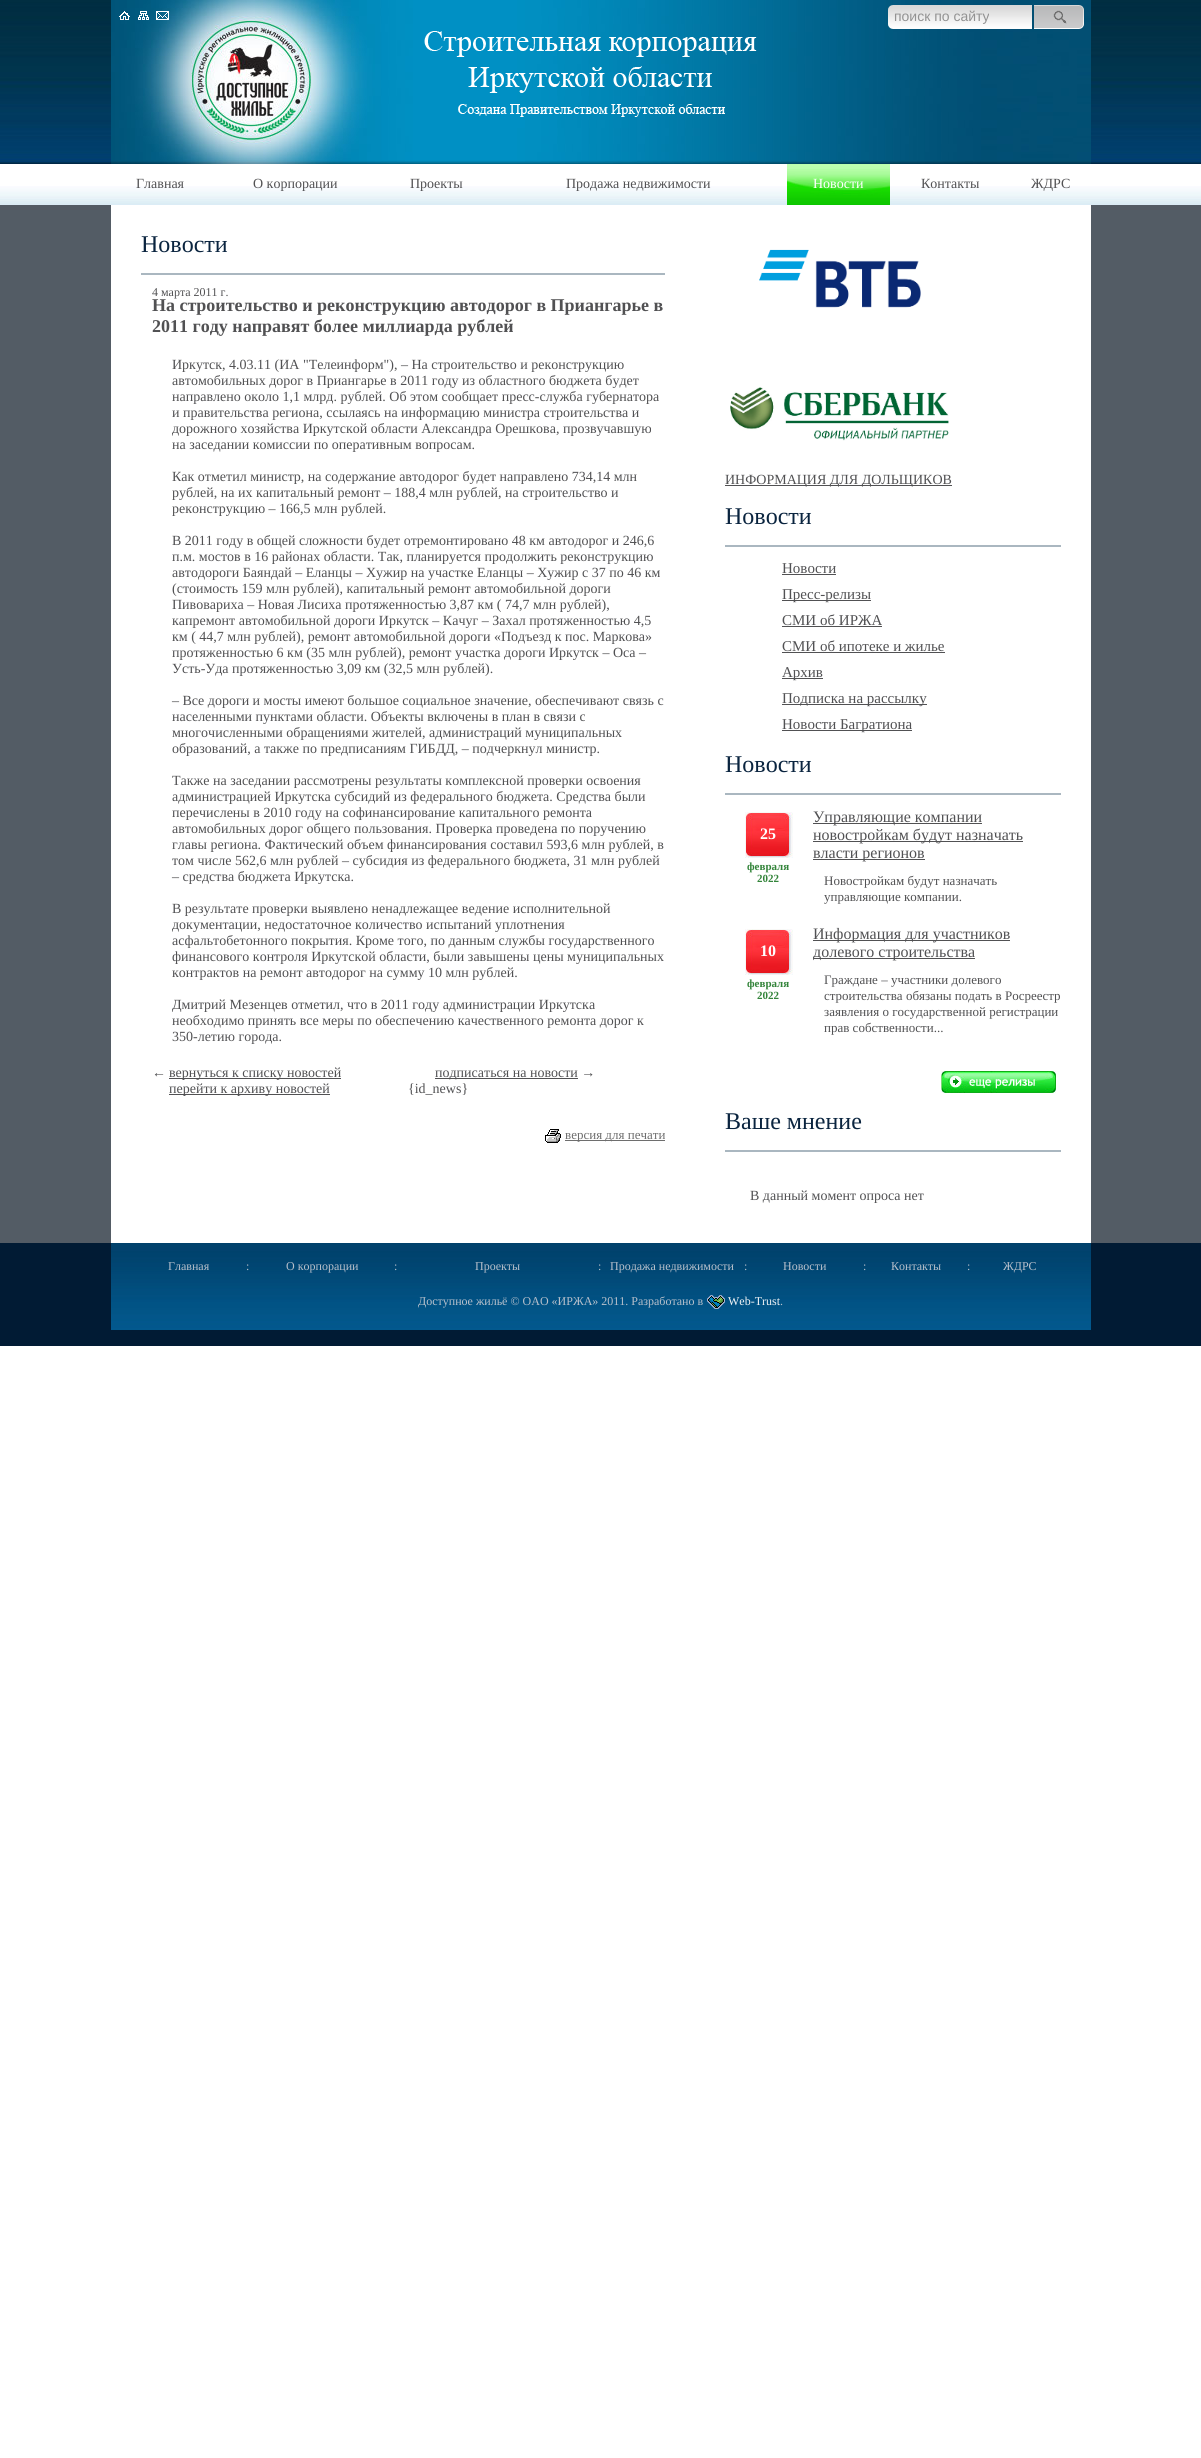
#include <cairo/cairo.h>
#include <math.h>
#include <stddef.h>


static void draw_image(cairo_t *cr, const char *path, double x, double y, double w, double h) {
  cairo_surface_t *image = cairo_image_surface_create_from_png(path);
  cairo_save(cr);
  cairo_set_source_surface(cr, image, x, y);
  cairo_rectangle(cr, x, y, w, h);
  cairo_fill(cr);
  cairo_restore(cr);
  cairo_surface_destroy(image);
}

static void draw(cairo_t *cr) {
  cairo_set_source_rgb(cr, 1, 1, 1);
  cairo_paint(cr);
  draw_image(cr, "images/1.png", 0, 0, 1201, 164);
  draw_image(cr, "images/2.png", 381, 0, 710, 164);
  draw_image(cr, "images/3.png", 111, 0, 270, 164);
  draw_image(cr, "images/4.png", 119, 11, 11, 9);
  draw_image(cr, "images/5.png", 138, 11, 11, 9);
  draw_image(cr, "images/6.png", 156, 11, 13, 9);
  draw_image(cr, "images/7.png", 888, 5, 144, 24);
  draw_image(cr, "images/8.png", 1034, 5, 50, 24);
  draw_image(cr, "images/9.png", 424, 31, 333, 86);
  draw_image(cr, "images/10.png", 0, 186, 1201, 19);
  draw_image(cr, "images/11.png", 787, 164, 103, 41);
  cairo_set_source_rgb(cr, 83 / 255.0, 92 / 255.0, 101 / 255.0);
  cairo_rectangle(cr, 0, 205, 1201, 1038);
  cairo_fill(cr);
  cairo_set_source_rgb(cr, 1, 1, 1);
  cairo_rectangle(cr, 111, 205, 980, 1038);
  cairo_fill(cr);
  cairo_set_source_rgb(cr, 170 / 255.0, 183 / 255.0, 192 / 255.0);
  cairo_rectangle(cr, 141, 273, 524, 2);
  cairo_fill(cr);
  cairo_set_source_rgb(cr, 81 / 255.0, 81 / 255.0, 83 / 255.0);
  cairo_rectangle(cr, 169, 1078, 172, 1);
  cairo_fill(cr);
  cairo_rectangle(cr, 169, 1094, 161, 1);
  cairo_fill(cr);
  cairo_rectangle(cr, 435, 1078, 143, 1);
  cairo_fill(cr);
  draw_image(cr, "images/12.png", 545, 1129, 16, 14);
  cairo_set_source_rgb(cr, 110 / 255.0, 110 / 255.0, 110 / 255.0);
  cairo_rectangle(cr, 565, 1140, 100, 1);
  cairo_fill(cr);
  draw_image(cr, "images/13.png", 759, 249, 162, 59);
  draw_image(cr, "images/14.png", 730, 387, 219, 54);
  cairo_set_source_rgb(cr, 81 / 255.0, 81 / 255.0, 83 / 255.0);
  cairo_rectangle(cr, 725, 485, 227, 1);
  cairo_fill(cr);
  cairo_set_source_rgb(cr, 170 / 255.0, 183 / 255.0, 192 / 255.0);
  cairo_rectangle(cr, 725, 545, 336, 2);
  cairo_fill(cr);
  cairo_set_source_rgb(cr, 81 / 255.0, 81 / 255.0, 83 / 255.0);
  cairo_rectangle(cr, 782, 574, 54, 1);
  cairo_fill(cr);
  cairo_rectangle(cr, 782, 600, 89, 1);
  cairo_fill(cr);
  cairo_rectangle(cr, 782, 626, 100, 1);
  cairo_fill(cr);
  cairo_rectangle(cr, 782, 652, 163, 1);
  cairo_fill(cr);
  cairo_rectangle(cr, 782, 678, 41, 1);
  cairo_fill(cr);
  cairo_rectangle(cr, 782, 704, 145, 1);
  cairo_fill(cr);
  cairo_rectangle(cr, 782, 730, 130, 1);
  cairo_fill(cr);
  cairo_set_source_rgb(cr, 170 / 255.0, 183 / 255.0, 192 / 255.0);
  cairo_rectangle(cr, 725, 793, 336, 2);
  cairo_fill(cr);
  draw_image(cr, "images/15.png", 745, 812, 48, 46);
  cairo_set_source_rgb(cr, 81 / 255.0, 81 / 255.0, 83 / 255.0);
  cairo_rectangle(cr, 813, 823, 169, 1);
  cairo_fill(cr);
  cairo_rectangle(cr, 813, 841, 210, 1);
  cairo_fill(cr);
  cairo_rectangle(cr, 813, 859, 112, 1);
  cairo_fill(cr);
  draw_image(cr, "images/15.png", 745, 929, 48, 46);
  cairo_rectangle(cr, 813, 940, 197, 1);
  cairo_fill(cr);
  cairo_rectangle(cr, 813, 958, 162, 1);
  cairo_fill(cr);
  draw_image(cr, "images/16.png", 941, 1071, 115, 22);
  cairo_set_source_rgb(cr, 170 / 255.0, 183 / 255.0, 192 / 255.0);
  cairo_rectangle(cr, 725, 1150, 336, 2);
  cairo_fill(cr);
  cairo_set_source_rgb(cr, 1 / 255.0, 27 / 255.0, 52 / 255.0);
  cairo_rectangle(cr, 0, 1243, 1201, 103);
  cairo_fill(cr);
  draw_image(cr, "images/17.png", 111, 1243, 980, 87);
  draw_image(cr, "images/18.png", 707, 1295, 18, 14);
  cairo_select_font_face(cr, "Liberation Sans", CAIRO_FONT_SLANT_NORMAL, CAIRO_FONT_WEIGHT_NORMAL);
  cairo_set_font_size(cr, 14);
  cairo_set_source_rgb(cr, 146 / 255.0, 146 / 255.0, 146 / 255.0);
  cairo_move_to(cr, 894, 21);
  cairo_show_text(cr, "поиск по сайту");
  cairo_select_font_face(cr, "Liberation Serif", CAIRO_FONT_SLANT_NORMAL, CAIRO_FONT_WEIGHT_NORMAL);
  cairo_set_source_rgb(cr, 81 / 255.0, 81 / 255.0, 83 / 255.0);
  cairo_move_to(cr, 136, 188);
  cairo_show_text(cr, "Главная");
  cairo_move_to(cr, 253, 188);
  cairo_show_text(cr, "О корпорации");
  cairo_move_to(cr, 410, 188);
  cairo_show_text(cr, "Проекты");
  cairo_move_to(cr, 566, 188);
  cairo_show_text(cr, "Продажа недвижимости");
  cairo_set_source_rgb(cr, 1, 1, 1);
  cairo_move_to(cr, 813, 188);
  cairo_show_text(cr, "Новости");
  cairo_set_source_rgb(cr, 81 / 255.0, 81 / 255.0, 83 / 255.0);
  cairo_move_to(cr, 921, 188);
  cairo_show_text(cr, "Контакты");
  cairo_move_to(cr, 1031, 188);
  cairo_show_text(cr, "ЖДРС");
  cairo_set_font_size(cr, 24);
  cairo_set_source_rgb(cr, 10 / 255.0, 36 / 255.0, 63 / 255.0);
  cairo_move_to(cr, 141, 252);
  cairo_show_text(cr, "Новости");
  cairo_set_font_size(cr, 12);
  cairo_set_source_rgb(cr, 81 / 255.0, 81 / 255.0, 83 / 255.0);
  cairo_move_to(cr, 152, 296);
  cairo_show_text(cr, "4 марта 2011 г.");
  cairo_select_font_face(cr, "Liberation Serif", CAIRO_FONT_SLANT_NORMAL, CAIRO_FONT_WEIGHT_BOLD);
  cairo_set_font_size(cr, 18);
  cairo_move_to(cr, 152, 311);
  cairo_show_text(cr, "На строительство и реконструкцию автодорог в Приангарье в");
  cairo_move_to(cr, 152, 332);
  cairo_show_text(cr, "2011 году направят более миллиарда рублей");
  cairo_select_font_face(cr, "Liberation Serif", CAIRO_FONT_SLANT_NORMAL, CAIRO_FONT_WEIGHT_NORMAL);
  cairo_set_font_size(cr, 14);
  cairo_move_to(cr, 172, 369);
  cairo_show_text(cr, "Иркутск, 4.03.11 (ИА \"Телеинформ\"), – На строительство и реконструкцию");
  cairo_move_to(cr, 172, 385);
  cairo_show_text(cr, "автомобильных дорог в Приангарье в 2011 году из областного бюджета будет");
  cairo_move_to(cr, 172, 401);
  cairo_show_text(cr, "направлено около 1,1 млрд. рублей. Об этом сообщает пресс-служба губернатора");
  cairo_move_to(cr, 172, 417);
  cairo_show_text(cr, "и правительства региона, ссылаясь на информацию министра строительства и");
  cairo_move_to(cr, 172, 433);
  cairo_show_text(cr, "дорожного хозяйства Иркутской области Александра Орешкова, прозвучавшую");
  cairo_move_to(cr, 172, 449);
  cairo_show_text(cr, "на заседании комиссии по оперативным вопросам.");
  cairo_move_to(cr, 172, 481);
  cairo_show_text(cr, "Как отметил министр, на содержание автодорог будет направлено 734,14 млн");
  cairo_move_to(cr, 172, 497);
  cairo_show_text(cr, "рублей, на их капитальный ремонт – 188,4 млн рублей, на строительство и");
  cairo_move_to(cr, 172, 513);
  cairo_show_text(cr, "реконструкцию – 166,5 млн рублей.");
  cairo_move_to(cr, 172, 545);
  cairo_show_text(cr, "В 2011 году в общей сложности будет отремонтировано 48 км автодорог и 246,6");
  cairo_move_to(cr, 172, 561);
  cairo_show_text(cr, "п.м. мостов в 16 районах области. Так, планируется продолжить реконструкцию");
  cairo_move_to(cr, 172, 577);
  cairo_show_text(cr, "автодороги Баяндай – Еланцы – Хужир на участке Еланцы – Хужир с 37 по 46 км");
  cairo_move_to(cr, 172, 593);
  cairo_show_text(cr, "(стоимость 159 млн рублей), капитальный ремонт автомобильной дороги");
  cairo_move_to(cr, 172, 609);
  cairo_show_text(cr, "Пивовариха – Новая Лисиха протяженностью 3,87 км ( 74,7 млн рублей),");
  cairo_move_to(cr, 172, 625);
  cairo_show_text(cr, "капремонт автомобильной дороги Иркутск – Качуг – Захал протяженностью 4,5");
  cairo_move_to(cr, 172, 641);
  cairo_show_text(cr, "км ( 44,7 млн рублей), ремонт автомобильной дороги «Подъезд к пос. Маркова»");
  cairo_move_to(cr, 172, 657);
  cairo_show_text(cr, "протяженностью 6 км (35 млн рублей), ремонт участка дороги Иркутск – Оса –");
  cairo_move_to(cr, 172, 673);
  cairo_show_text(cr, "Усть-Уда протяженностью 3,09 км (32,5 млн рублей).");
  cairo_move_to(cr, 172, 705);
  cairo_show_text(cr, "– Все дороги и мосты имеют большое социальное значение, обеспечивают связь с");
  cairo_move_to(cr, 172, 721);
  cairo_show_text(cr, "населенными пунктами области. Объекты включены в план в связи с");
  cairo_move_to(cr, 172, 737);
  cairo_show_text(cr, "многочисленными обращениями жителей, администраций муниципальных");
  cairo_move_to(cr, 172, 753);
  cairo_show_text(cr, "образований, а также по предписаниям ГИБДД, – подчеркнул министр.");
  cairo_move_to(cr, 172, 785);
  cairo_show_text(cr, "Также на заседании рассмотрены результаты комплексной проверки освоения");
  cairo_move_to(cr, 172, 801);
  cairo_show_text(cr, "администрацией Иркутска субсидий из федерального бюджета. Средства были");
  cairo_move_to(cr, 172, 817);
  cairo_show_text(cr, "перечислены в 2010 году на софинансирование капитального ремонта");
  cairo_move_to(cr, 172, 833);
  cairo_show_text(cr, "автомобильных дорог общего пользования. Проверка проведена по поручению");
  cairo_move_to(cr, 172, 849);
  cairo_show_text(cr, "главы региона. Фактический объем финансирования составил 593,6 млн рублей, в");
  cairo_move_to(cr, 172, 865);
  cairo_show_text(cr, "том числе 562,6 млн рублей – субсидия из федерального бюджета, 31 млн рублей");
  cairo_move_to(cr, 172, 881);
  cairo_show_text(cr, "– средства бюджета Иркутска.");
  cairo_move_to(cr, 172, 913);
  cairo_show_text(cr, "В результате проверки выявлено ненадлежащее ведение исполнительной");
  cairo_move_to(cr, 172, 929);
  cairo_show_text(cr, "документации, недостаточное количество испытаний уплотнения");
  cairo_move_to(cr, 172, 945);
  cairo_show_text(cr, "асфальтобетонного покрытия. Кроме того, по данным службы государственного");
  cairo_move_to(cr, 172, 961);
  cairo_show_text(cr, "финансового контроля Иркутской области, были завышены цены муниципальных");
  cairo_move_to(cr, 172, 977);
  cairo_show_text(cr, "контрактов на ремонт автодорог на сумму 10 млн рублей.");
  cairo_move_to(cr, 172, 1009);
  cairo_show_text(cr, "Дмитрий Мезенцев отметил, что в 2011 году администрации Иркутска");
  cairo_move_to(cr, 172, 1025);
  cairo_show_text(cr, "необходимо принять все меры по обеспечению качественного ремонта дорог к");
  cairo_move_to(cr, 172, 1041);
  cairo_show_text(cr, "350-летию города.");
  cairo_move_to(cr, 152, 1077);
  cairo_show_text(cr, "←");
  cairo_move_to(cr, 169, 1077);
  cairo_show_text(cr, "вернуться к списку новостей");
  cairo_move_to(cr, 169, 1093);
  cairo_show_text(cr, "перейти к архиву новостей");
  cairo_move_to(cr, 435, 1077);
  cairo_show_text(cr, "подписаться на новости →");
  cairo_move_to(cr, 408, 1093);
  cairo_show_text(cr, "{id_news}");
  cairo_set_font_size(cr, 13);
  cairo_set_source_rgb(cr, 110 / 255.0, 110 / 255.0, 110 / 255.0);
  cairo_move_to(cr, 565, 1139);
  cairo_show_text(cr, "версия для печати");
  cairo_set_font_size(cr, 14);
  cairo_set_source_rgb(cr, 81 / 255.0, 81 / 255.0, 83 / 255.0);
  cairo_move_to(cr, 725, 484);
  cairo_show_text(cr, "ИНФОРМАЦИЯ ДЛЯ ДОЛЬЩИКОВ");
  cairo_set_font_size(cr, 24);
  cairo_set_source_rgb(cr, 10 / 255.0, 36 / 255.0, 63 / 255.0);
  cairo_move_to(cr, 725, 524);
  cairo_show_text(cr, "Новости");
  cairo_set_font_size(cr, 15);
  cairo_set_source_rgb(cr, 81 / 255.0, 81 / 255.0, 83 / 255.0);
  cairo_move_to(cr, 782, 573);
  cairo_show_text(cr, "Новости");
  cairo_move_to(cr, 782, 599);
  cairo_show_text(cr, "Пресс-релизы");
  cairo_move_to(cr, 782, 625);
  cairo_show_text(cr, "СМИ об ИРЖА");
  cairo_move_to(cr, 782, 651);
  cairo_show_text(cr, "СМИ об ипотеке и жилье");
  cairo_move_to(cr, 782, 677);
  cairo_show_text(cr, "Архив");
  cairo_move_to(cr, 782, 703);
  cairo_show_text(cr, "Подписка на рассылку");
  cairo_move_to(cr, 782, 729);
  cairo_show_text(cr, "Новости Багратиона");
  cairo_set_font_size(cr, 24);
  cairo_set_source_rgb(cr, 10 / 255.0, 36 / 255.0, 63 / 255.0);
  cairo_move_to(cr, 725, 772);
  cairo_show_text(cr, "Новости");
  cairo_select_font_face(cr, "Liberation Serif", CAIRO_FONT_SLANT_NORMAL, CAIRO_FONT_WEIGHT_BOLD);
  cairo_set_font_size(cr, 16);
  cairo_set_source_rgb(cr, 1, 1, 1);
  cairo_move_to(cr, 760, 839);
  cairo_show_text(cr, "25");
  cairo_set_font_size(cr, 11);
  cairo_set_source_rgb(cr, 51 / 255.0, 132 / 255.0, 58 / 255.0);
  cairo_move_to(cr, 747, 870);
  cairo_show_text(cr, "февраля");
  cairo_move_to(cr, 757, 882);
  cairo_show_text(cr, "2022");
  cairo_select_font_face(cr, "Liberation Serif", CAIRO_FONT_SLANT_NORMAL, CAIRO_FONT_WEIGHT_NORMAL);
  cairo_set_font_size(cr, 16);
  cairo_set_source_rgb(cr, 81 / 255.0, 81 / 255.0, 83 / 255.0);
  cairo_move_to(cr, 813, 822);
  cairo_show_text(cr, "Управляющие компании");
  cairo_move_to(cr, 813, 840);
  cairo_show_text(cr, "новостройкам будут назначать");
  cairo_move_to(cr, 813, 858);
  cairo_show_text(cr, "власти регионов");
  cairo_set_font_size(cr, 13);
  cairo_move_to(cr, 824, 885);
  cairo_show_text(cr, "Новостройкам будут назначать");
  cairo_move_to(cr, 824, 901);
  cairo_show_text(cr, "управляющие компании.");
  cairo_select_font_face(cr, "Liberation Serif", CAIRO_FONT_SLANT_NORMAL, CAIRO_FONT_WEIGHT_BOLD);
  cairo_set_font_size(cr, 16);
  cairo_set_source_rgb(cr, 1, 1, 1);
  cairo_move_to(cr, 760, 956);
  cairo_show_text(cr, "10");
  cairo_set_font_size(cr, 11);
  cairo_set_source_rgb(cr, 51 / 255.0, 132 / 255.0, 58 / 255.0);
  cairo_move_to(cr, 747, 987);
  cairo_show_text(cr, "февраля");
  cairo_move_to(cr, 757, 999);
  cairo_show_text(cr, "2022");
  cairo_select_font_face(cr, "Liberation Serif", CAIRO_FONT_SLANT_NORMAL, CAIRO_FONT_WEIGHT_NORMAL);
  cairo_set_font_size(cr, 16);
  cairo_set_source_rgb(cr, 81 / 255.0, 81 / 255.0, 83 / 255.0);
  cairo_move_to(cr, 813, 939);
  cairo_show_text(cr, "Информация для участников");
  cairo_move_to(cr, 813, 957);
  cairo_show_text(cr, "долевого строительства");
  cairo_set_font_size(cr, 13);
  cairo_move_to(cr, 824, 984);
  cairo_show_text(cr, "Граждане – участники долевого");
  cairo_move_to(cr, 824, 1000);
  cairo_show_text(cr, "строительства обязаны подать в Росреестр");
  cairo_move_to(cr, 824, 1016);
  cairo_show_text(cr, "заявления о государственной регистрации");
  cairo_move_to(cr, 824, 1032);
  cairo_show_text(cr, "прав собственности...");
  cairo_set_font_size(cr, 24);
  cairo_set_source_rgb(cr, 10 / 255.0, 36 / 255.0, 63 / 255.0);
  cairo_move_to(cr, 725, 1129);
  cairo_show_text(cr, "Ваше мнение");
  cairo_set_font_size(cr, 14);
  cairo_set_source_rgb(cr, 81 / 255.0, 81 / 255.0, 83 / 255.0);
  cairo_move_to(cr, 750, 1200);
  cairo_show_text(cr, "В данный момент опроса нет");
  cairo_set_font_size(cr, 12);
  cairo_set_source_rgb(cr, 184 / 255.0, 192 / 255.0, 203 / 255.0);
  cairo_move_to(cr, 168, 1270);
  cairo_show_text(cr, "Главная");
  cairo_move_to(cr, 246, 1270);
  cairo_show_text(cr, ":");
  cairo_move_to(cr, 286, 1270);
  cairo_show_text(cr, "О корпорации");
  cairo_move_to(cr, 394, 1270);
  cairo_show_text(cr, ":");
  cairo_move_to(cr, 475, 1270);
  cairo_show_text(cr, "Проекты");
  cairo_move_to(cr, 598, 1270);
  cairo_show_text(cr, ":");
  cairo_move_to(cr, 610, 1270);
  cairo_show_text(cr, "Продажа недвижимости");
  cairo_move_to(cr, 744, 1270);
  cairo_show_text(cr, ":");
  cairo_move_to(cr, 783, 1270);
  cairo_show_text(cr, "Новости");
  cairo_move_to(cr, 863, 1270);
  cairo_show_text(cr, ":");
  cairo_move_to(cr, 891, 1270);
  cairo_show_text(cr, "Контакты");
  cairo_move_to(cr, 967, 1270);
  cairo_show_text(cr, ":");
  cairo_move_to(cr, 1003, 1270);
  cairo_show_text(cr, "ЖДРС");
  cairo_move_to(cr, 418, 1305);
  cairo_show_text(cr, "Доступное жильё © ОАО «ИРЖА» 2011. Разработано в");
  cairo_set_source_rgb(cr, 241 / 255.0, 243 / 255.0, 245 / 255.0);
  cairo_move_to(cr, 728, 1305);
  cairo_show_text(cr, "Web-Trust");
  cairo_set_source_rgb(cr, 184 / 255.0, 192 / 255.0, 203 / 255.0);
  cairo_move_to(cr, 780, 1305);
  cairo_show_text(cr, ".");
}

int main(void) {
  cairo_surface_t *surface = cairo_image_surface_create(CAIRO_FORMAT_RGB24, 1201, 2458);
  cairo_t *cr = cairo_create(surface);
  cairo_font_options_t *options = cairo_font_options_create();
  cairo_font_options_set_hint_metrics(options, CAIRO_HINT_METRICS_OFF);
  cairo_font_options_set_hint_style(options, CAIRO_HINT_STYLE_NONE);
  cairo_set_font_options(cr, options);
  cairo_set_miter_limit(cr, 4);
  draw(cr);
  cairo_surface_write_to_png(surface, "out.png");
  cairo_font_options_destroy(options);
  cairo_destroy(cr);
  cairo_surface_destroy(surface);
  return 0;
}
